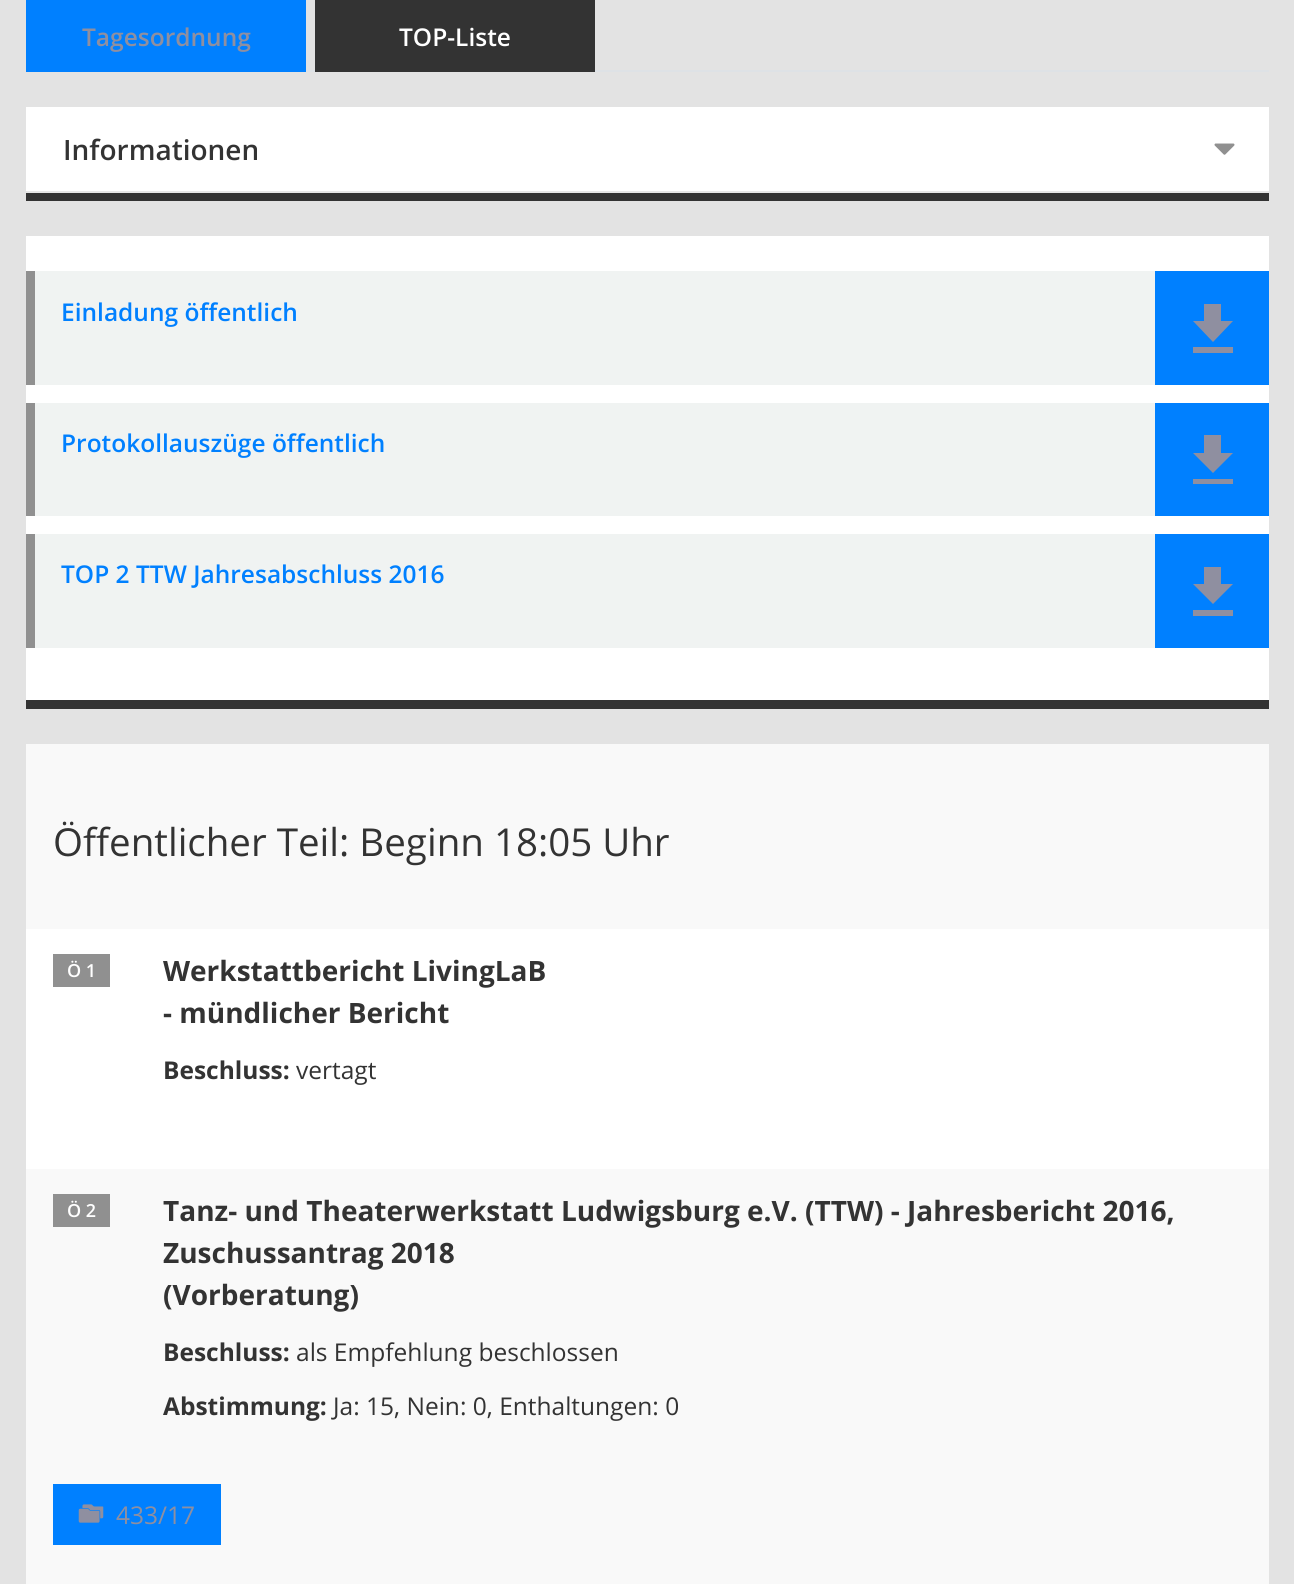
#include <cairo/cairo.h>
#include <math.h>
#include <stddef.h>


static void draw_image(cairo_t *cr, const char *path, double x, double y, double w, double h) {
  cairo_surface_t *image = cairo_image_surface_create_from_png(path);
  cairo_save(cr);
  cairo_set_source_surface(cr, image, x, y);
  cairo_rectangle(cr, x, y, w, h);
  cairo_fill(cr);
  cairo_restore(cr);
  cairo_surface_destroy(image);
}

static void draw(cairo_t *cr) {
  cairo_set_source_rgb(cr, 227 / 255.0, 227 / 255.0, 227 / 255.0);
  cairo_paint(cr);
  cairo_set_source_rgb(cr, 222 / 255.0, 226 / 255.0, 230 / 255.0);
  cairo_rectangle(cr, 306, 70, 963, 2);
  cairo_fill(cr);
  cairo_set_source_rgb(cr, 0, 128 / 255.0, 1);
  cairo_rectangle(cr, 26, 0, 280, 72);
  cairo_fill(cr);
  cairo_set_source_rgb(cr, 51 / 255.0, 51 / 255.0, 51 / 255.0);
  cairo_rectangle(cr, 315, 0, 280, 72);
  cairo_fill(cr);
  cairo_set_source_rgb(cr, 1, 1, 1);
  cairo_rectangle(cr, 26, 107, 1243, 84);
  cairo_fill(cr);
  cairo_set_source_rgb(cr, 51 / 255.0, 51 / 255.0, 51 / 255.0);
  cairo_rectangle(cr, 26, 193, 1243, 8);
  cairo_fill(cr);
  cairo_set_source_rgb(cr, 230 / 255.0, 230 / 255.0, 230 / 255.0);
  cairo_rectangle(cr, 26, 191, 1243, 2);
  cairo_fill(cr);
  draw_image(cr, "images/1.png", 1214, 143, 21, 12);
  cairo_set_source_rgb(cr, 1, 1, 1);
  cairo_rectangle(cr, 26, 236, 1243, 464);
  cairo_fill(cr);
  cairo_set_source_rgb(cr, 51 / 255.0, 51 / 255.0, 51 / 255.0);
  cairo_rectangle(cr, 26, 700, 1243, 9);
  cairo_fill(cr);
  cairo_set_source_rgb(cr, 240 / 255.0, 243 / 255.0, 242 / 255.0);
  cairo_rectangle(cr, 35, 271, 1120, 114);
  cairo_fill(cr);
  cairo_set_source_rgb(cr, 144 / 255.0, 144 / 255.0, 144 / 255.0);
  cairo_rectangle(cr, 26, 271, 9, 114);
  cairo_fill(cr);
  cairo_set_source_rgb(cr, 0, 128 / 255.0, 1);
  cairo_rectangle(cr, 1155, 271, 114, 114);
  cairo_fill(cr);
  cairo_set_source_rgb(cr, 143 / 255.0, 143 / 255.0, 160 / 255.0);
  cairo_new_path(cr);
  cairo_move_to(cr, 1233, 321);
  cairo_line_to(cr, 1221, 321);
  cairo_line_to(cr, 1221, 304);
  cairo_line_to(cr, 1204, 304);
  cairo_line_to(cr, 1204, 321);
  cairo_line_to(cr, 1193, 321);
  cairo_line_to(cr, 1213, 342);
  cairo_close_path(cr);
  cairo_move_to(cr, 1193, 347);
  cairo_line_to(cr, 1193, 353);
  cairo_line_to(cr, 1233, 353);
  cairo_line_to(cr, 1233, 347);
  cairo_close_path(cr);
  cairo_fill(cr);
  cairo_set_source_rgb(cr, 240 / 255.0, 243 / 255.0, 242 / 255.0);
  cairo_rectangle(cr, 35, 403, 1120, 113);
  cairo_fill(cr);
  cairo_set_source_rgb(cr, 144 / 255.0, 144 / 255.0, 144 / 255.0);
  cairo_rectangle(cr, 26, 403, 9, 113);
  cairo_fill(cr);
  cairo_set_source_rgb(cr, 0, 128 / 255.0, 1);
  cairo_rectangle(cr, 1155, 403, 114, 113);
  cairo_fill(cr);
  cairo_set_source_rgb(cr, 143 / 255.0, 143 / 255.0, 160 / 255.0);
  cairo_new_path(cr);
  cairo_move_to(cr, 1233, 453);
  cairo_line_to(cr, 1221, 453);
  cairo_line_to(cr, 1221, 435);
  cairo_line_to(cr, 1204, 435);
  cairo_line_to(cr, 1204, 453);
  cairo_line_to(cr, 1193, 453);
  cairo_line_to(cr, 1213, 473);
  cairo_close_path(cr);
  cairo_move_to(cr, 1193, 479);
  cairo_line_to(cr, 1193, 484);
  cairo_line_to(cr, 1233, 484);
  cairo_line_to(cr, 1233, 479);
  cairo_close_path(cr);
  cairo_fill(cr);
  cairo_set_source_rgb(cr, 240 / 255.0, 243 / 255.0, 242 / 255.0);
  cairo_rectangle(cr, 35, 534, 1120, 114);
  cairo_fill(cr);
  cairo_set_source_rgb(cr, 144 / 255.0, 144 / 255.0, 144 / 255.0);
  cairo_rectangle(cr, 26, 534, 9, 114);
  cairo_fill(cr);
  cairo_set_source_rgb(cr, 0, 128 / 255.0, 1);
  cairo_rectangle(cr, 1155, 534, 114, 114);
  cairo_fill(cr);
  cairo_set_source_rgb(cr, 143 / 255.0, 143 / 255.0, 160 / 255.0);
  cairo_new_path(cr);
  cairo_move_to(cr, 1233, 584);
  cairo_line_to(cr, 1221, 584);
  cairo_line_to(cr, 1221, 567);
  cairo_line_to(cr, 1204, 567);
  cairo_line_to(cr, 1204, 584);
  cairo_line_to(cr, 1193, 584);
  cairo_line_to(cr, 1213, 604);
  cairo_close_path(cr);
  cairo_move_to(cr, 1193, 610);
  cairo_line_to(cr, 1193, 616);
  cairo_line_to(cr, 1233, 616);
  cairo_line_to(cr, 1233, 610);
  cairo_close_path(cr);
  cairo_fill(cr);
  cairo_set_source_rgb(cr, 1, 1, 1);
  cairo_rectangle(cr, 26, 929, 1243, 240);
  cairo_fill(cr);
  cairo_set_source_rgb(cr, 249 / 255.0, 249 / 255.0, 249 / 255.0);
  cairo_rectangle(cr, 26, 744, 1243, 185);
  cairo_fill(cr);
  cairo_set_source_rgb(cr, 144 / 255.0, 144 / 255.0, 144 / 255.0);
  cairo_rectangle(cr, 53, 954, 57, 33);
  cairo_fill(cr);
  cairo_set_source_rgb(cr, 249 / 255.0, 249 / 255.0, 249 / 255.0);
  cairo_rectangle(cr, 26, 1169, 1243, 415);
  cairo_fill(cr);
  cairo_set_source_rgb(cr, 144 / 255.0, 144 / 255.0, 144 / 255.0);
  cairo_rectangle(cr, 53, 1194, 57, 33);
  cairo_fill(cr);
  cairo_set_source_rgb(cr, 0, 128 / 255.0, 1);
  cairo_rectangle(cr, 53, 1484, 168, 61);
  cairo_fill(cr);
  draw_image(cr, "images/2.png", 78, 1504, 26, 19);
  cairo_select_font_face(cr, "Open Sans SemiBold", CAIRO_FONT_SLANT_NORMAL, CAIRO_FONT_WEIGHT_NORMAL);
  cairo_set_font_size(cr, 24.5);
  cairo_set_source_rgb(cr, 143 / 255.0, 143 / 255.0, 160 / 255.0);
  cairo_move_to(cr, 82, 46);
  cairo_show_text(cr, "Tagesordnung");
  cairo_set_source_rgb(cr, 1, 1, 1);
  cairo_move_to(cr, 399, 46);
  cairo_show_text(cr, "TOP-Liste");
  cairo_set_font_size(cr, 28);
  cairo_set_source_rgb(cr, 51 / 255.0, 51 / 255.0, 51 / 255.0);
  cairo_move_to(cr, 63, 160);
  cairo_show_text(cr, "Informationen");
  cairo_set_font_size(cr, 24.5);
  cairo_set_source_rgb(cr, 0, 128 / 255.0, 1);
  cairo_move_to(cr, 61, 321);
  cairo_show_text(cr, "Einladung öffentlich");
  cairo_move_to(cr, 61, 452);
  cairo_show_text(cr, "Protokollauszüge öffentlich");
  cairo_move_to(cr, 61, 583);
  cairo_show_text(cr, "TOP 2 TTW Jahresabschluss 2016");
  cairo_select_font_face(cr, "Open Sans", CAIRO_FONT_SLANT_NORMAL, CAIRO_FONT_WEIGHT_NORMAL);
  cairo_set_font_size(cr, 38.5);
  cairo_set_source_rgb(cr, 51 / 255.0, 51 / 255.0, 51 / 255.0);
  cairo_move_to(cr, 53, 856);
  cairo_show_text(cr, "Öffentlicher Teil: Beginn 18:05 Uhr");
  cairo_select_font_face(cr, "Open Sans SemiBold", CAIRO_FONT_SLANT_NORMAL, CAIRO_FONT_WEIGHT_NORMAL);
  cairo_set_font_size(cr, 18);
  cairo_set_source_rgb(cr, 1, 1, 1);
  cairo_move_to(cr, 67, 977);
  cairo_show_text(cr, "Ö 1");
  cairo_select_font_face(cr, "Open Sans", CAIRO_FONT_SLANT_NORMAL, CAIRO_FONT_WEIGHT_BOLD);
  cairo_set_font_size(cr, 28);
  cairo_set_source_rgb(cr, 51 / 255.0, 51 / 255.0, 51 / 255.0);
  cairo_move_to(cr, 163, 981);
  cairo_show_text(cr, "Werkstattbericht LivingLaB");
  cairo_move_to(cr, 163, 1023);
  cairo_show_text(cr, "- mündlicher Bericht");
  cairo_set_font_size(cr, 24.5);
  cairo_move_to(cr, 163, 1079);
  cairo_show_text(cr, "Beschluss:");
  cairo_select_font_face(cr, "Open Sans", CAIRO_FONT_SLANT_NORMAL, CAIRO_FONT_WEIGHT_NORMAL);
  cairo_move_to(cr, 296, 1079);
  cairo_show_text(cr, "vertagt");
  cairo_select_font_face(cr, "Open Sans SemiBold", CAIRO_FONT_SLANT_NORMAL, CAIRO_FONT_WEIGHT_NORMAL);
  cairo_set_font_size(cr, 18);
  cairo_set_source_rgb(cr, 1, 1, 1);
  cairo_move_to(cr, 67, 1217);
  cairo_show_text(cr, "Ö 2");
  cairo_select_font_face(cr, "Open Sans", CAIRO_FONT_SLANT_NORMAL, CAIRO_FONT_WEIGHT_BOLD);
  cairo_set_font_size(cr, 28);
  cairo_set_source_rgb(cr, 51 / 255.0, 51 / 255.0, 51 / 255.0);
  cairo_move_to(cr, 163, 1221);
  cairo_show_text(cr, "Tanz- und Theaterwerkstatt Ludwigsburg e.V. (TTW) - Jahresbericht 2016,");
  cairo_move_to(cr, 163, 1263);
  cairo_show_text(cr, "Zuschussantrag 2018");
  cairo_move_to(cr, 163, 1305);
  cairo_show_text(cr, "(Vorberatung)");
  cairo_set_font_size(cr, 24.5);
  cairo_move_to(cr, 163, 1361);
  cairo_show_text(cr, "Beschluss:");
  cairo_select_font_face(cr, "Open Sans", CAIRO_FONT_SLANT_NORMAL, CAIRO_FONT_WEIGHT_NORMAL);
  cairo_move_to(cr, 296, 1361);
  cairo_show_text(cr, "als Empfehlung beschlossen");
  cairo_select_font_face(cr, "Open Sans", CAIRO_FONT_SLANT_NORMAL, CAIRO_FONT_WEIGHT_BOLD);
  cairo_move_to(cr, 163, 1415);
  cairo_show_text(cr, "Abstimmung:");
  cairo_select_font_face(cr, "Open Sans", CAIRO_FONT_SLANT_NORMAL, CAIRO_FONT_WEIGHT_NORMAL);
  cairo_move_to(cr, 333, 1415);
  cairo_show_text(cr, "Ja: 15, Nein: 0, Enthaltungen: 0");
  cairo_set_source_rgb(cr, 143 / 255.0, 143 / 255.0, 160 / 255.0);
  cairo_move_to(cr, 116, 1524);
  cairo_show_text(cr, "433/17");
}

int main(void) {
  cairo_surface_t *surface = cairo_image_surface_create(CAIRO_FORMAT_RGB24, 1294, 1584);
  cairo_t *cr = cairo_create(surface);
  cairo_font_options_t *options = cairo_font_options_create();
  cairo_font_options_set_hint_metrics(options, CAIRO_HINT_METRICS_OFF);
  cairo_font_options_set_hint_style(options, CAIRO_HINT_STYLE_NONE);
  cairo_set_font_options(cr, options);
  cairo_set_miter_limit(cr, 4);
  draw(cr);
  cairo_surface_write_to_png(surface, "out.png");
  cairo_font_options_destroy(options);
  cairo_destroy(cr);
  cairo_surface_destroy(surface);
  return 0;
}
